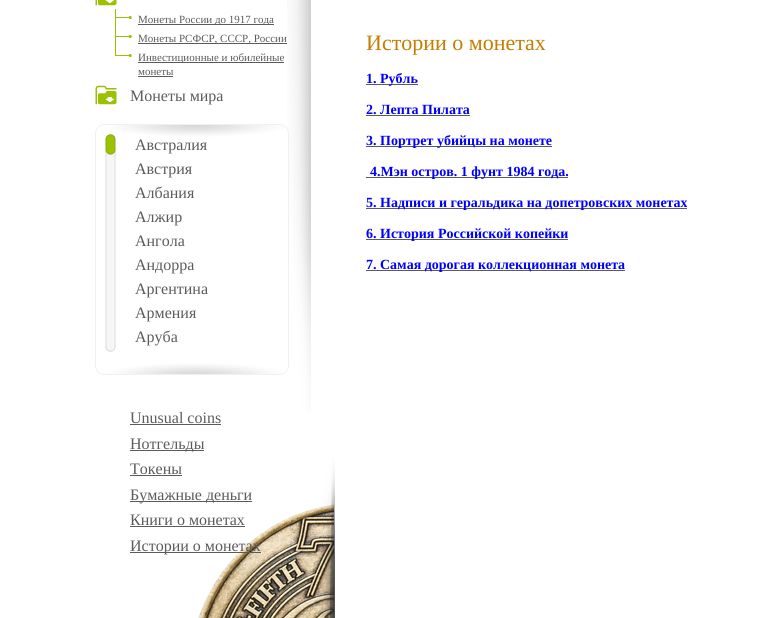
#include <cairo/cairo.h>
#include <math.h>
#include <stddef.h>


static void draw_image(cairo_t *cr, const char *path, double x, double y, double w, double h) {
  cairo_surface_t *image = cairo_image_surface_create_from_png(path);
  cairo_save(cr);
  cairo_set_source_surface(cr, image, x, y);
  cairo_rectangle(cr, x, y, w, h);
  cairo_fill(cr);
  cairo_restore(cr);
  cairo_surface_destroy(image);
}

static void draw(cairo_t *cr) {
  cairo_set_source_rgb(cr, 1, 1, 1);
  cairo_paint(cr);
  draw_image(cr, "images/1.png", 287, 0, 24, 412);
  draw_image(cr, "images/2.png", 95, 0, 22, 6);
  draw_image(cr, "images/3.png", 115, 9, 17, 19);
  cairo_set_source_rgb(cr, 91 / 255.0, 91 / 255.0, 91 / 255.0);
  cairo_rectangle(cr, 138, 24, 136, 1);
  cairo_fill(cr);
  draw_image(cr, "images/3.png", 115, 28, 17, 19);
  cairo_rectangle(cr, 138, 43, 149, 1);
  cairo_fill(cr);
  draw_image(cr, "images/4.png", 115, 47, 17, 10);
  cairo_rectangle(cr, 138, 62, 146, 1);
  cairo_fill(cr);
  cairo_rectangle(cr, 138, 76, 35, 1);
  cairo_fill(cr);
  draw_image(cr, "images/5.png", 95, 85, 22, 20);
  draw_image(cr, "images/6.png", 95, 124, 194, 251);
  draw_image(cr, "images/7.png", 105, 134, 11, 218);
  draw_image(cr, "images/8.png", 105, 134, 11, 21);
  cairo_rectangle(cr, 130, 424, 91, 1);
  cairo_fill(cr);
  cairo_rectangle(cr, 130, 450, 74, 1);
  cairo_fill(cr);
  cairo_rectangle(cr, 130, 475, 52, 1);
  cairo_fill(cr);
  cairo_rectangle(cr, 130, 501, 122, 1);
  cairo_fill(cr);
  draw_image(cr, "images/10.png", 198, 504, 136, 114);
  cairo_rectangle(cr, 130, 526, 115, 1);
  cairo_fill(cr);
  cairo_rectangle(cr, 130, 552, 131, 1);
  cairo_fill(cr);
  draw_image(cr, "images/9.png", 319, 460, 16, 158);
  cairo_rectangle(cr, 366, 84, 52, 1);
  cairo_fill(cr);
  cairo_rectangle(cr, 366, 115, 104, 1);
  cairo_fill(cr);
  cairo_rectangle(cr, 366, 146, 186, 1);
  cairo_fill(cr);
  cairo_rectangle(cr, 366, 177, 202, 1);
  cairo_fill(cr);
  cairo_rectangle(cr, 366, 208, 321, 1);
  cairo_fill(cr);
  cairo_rectangle(cr, 366, 239, 202, 1);
  cairo_fill(cr);
  cairo_rectangle(cr, 366, 270, 259, 1);
  cairo_fill(cr);
  cairo_select_font_face(cr, "Liberation Serif", CAIRO_FONT_SLANT_NORMAL, CAIRO_FONT_WEIGHT_NORMAL);
  cairo_set_font_size(cr, 11);
  cairo_move_to(cr, 138, 23);
  cairo_show_text(cr, "Монеты России до 1917 года");
  cairo_move_to(cr, 138, 42);
  cairo_show_text(cr, "Монеты РСФСР, СССР, России");
  cairo_move_to(cr, 138, 61);
  cairo_show_text(cr, "Инвестиционные и юбилейные");
  cairo_move_to(cr, 138, 75);
  cairo_show_text(cr, "монеты");
  cairo_set_font_size(cr, 16);
  cairo_move_to(cr, 130, 101);
  cairo_show_text(cr, "Монеты мира");
  cairo_move_to(cr, 135, 150);
  cairo_show_text(cr, "Австралия");
  cairo_move_to(cr, 135, 174);
  cairo_show_text(cr, "Австрия");
  cairo_move_to(cr, 135, 198);
  cairo_show_text(cr, "Албания");
  cairo_move_to(cr, 135, 222);
  cairo_show_text(cr, "Алжир");
  cairo_move_to(cr, 135, 246);
  cairo_show_text(cr, "Ангола");
  cairo_move_to(cr, 135, 270);
  cairo_show_text(cr, "Андорра");
  cairo_move_to(cr, 135, 294);
  cairo_show_text(cr, "Аргентина");
  cairo_move_to(cr, 135, 318);
  cairo_show_text(cr, "Армения");
  cairo_move_to(cr, 135, 342);
  cairo_show_text(cr, "Аруба");
  cairo_move_to(cr, 130, 423);
  cairo_show_text(cr, "Unusual coins");
  cairo_move_to(cr, 130, 449);
  cairo_show_text(cr, "Нотгельды");
  cairo_move_to(cr, 130, 474);
  cairo_show_text(cr, "Токены");
  cairo_move_to(cr, 130, 500);
  cairo_show_text(cr, "Бумажные деньги");
  cairo_move_to(cr, 130, 525);
  cairo_show_text(cr, "Книги о монетах");
  cairo_move_to(cr, 130, 551);
  cairo_show_text(cr, "Истории о монетах");
  cairo_set_font_size(cr, 22);
  cairo_set_source_rgb(cr, 195 / 255.0, 125 / 255.0, 0);
  cairo_move_to(cr, 366, 50);
  cairo_show_text(cr, "Истории о монетах");
  cairo_select_font_face(cr, "Liberation Serif", CAIRO_FONT_SLANT_NORMAL, CAIRO_FONT_WEIGHT_BOLD);
  cairo_set_font_size(cr, 14);
  cairo_set_source_rgb(cr, 0, 0, 1);
  cairo_move_to(cr, 366, 83);
  cairo_show_text(cr, "1. Рубль");
  cairo_move_to(cr, 366, 114);
  cairo_show_text(cr, "2. Лепта Пилата");
  cairo_move_to(cr, 366, 145);
  cairo_show_text(cr, "3. Портрет убийцы на монете");
  cairo_move_to(cr, 370, 176);
  cairo_show_text(cr, "4.Мэн остров. 1 фунт 1984 года.");
  cairo_move_to(cr, 366, 207);
  cairo_show_text(cr, "5. Надписи и геральдика на допетровских монетах");
  cairo_move_to(cr, 366, 238);
  cairo_show_text(cr, "6. История Российской копейки");
  cairo_move_to(cr, 366, 269);
  cairo_show_text(cr, "7. Самая дорогая коллекционная монета");
}

int main(void) {
  cairo_surface_t *surface = cairo_image_surface_create(CAIRO_FORMAT_RGB24, 783, 618);
  cairo_t *cr = cairo_create(surface);
  cairo_font_options_t *options = cairo_font_options_create();
  cairo_font_options_set_hint_metrics(options, CAIRO_HINT_METRICS_OFF);
  cairo_font_options_set_hint_style(options, CAIRO_HINT_STYLE_NONE);
  cairo_set_font_options(cr, options);
  cairo_set_miter_limit(cr, 4);
  draw(cr);
  cairo_surface_write_to_png(surface, "out.png");
  cairo_font_options_destroy(options);
  cairo_destroy(cr);
  cairo_surface_destroy(surface);
  return 0;
}
